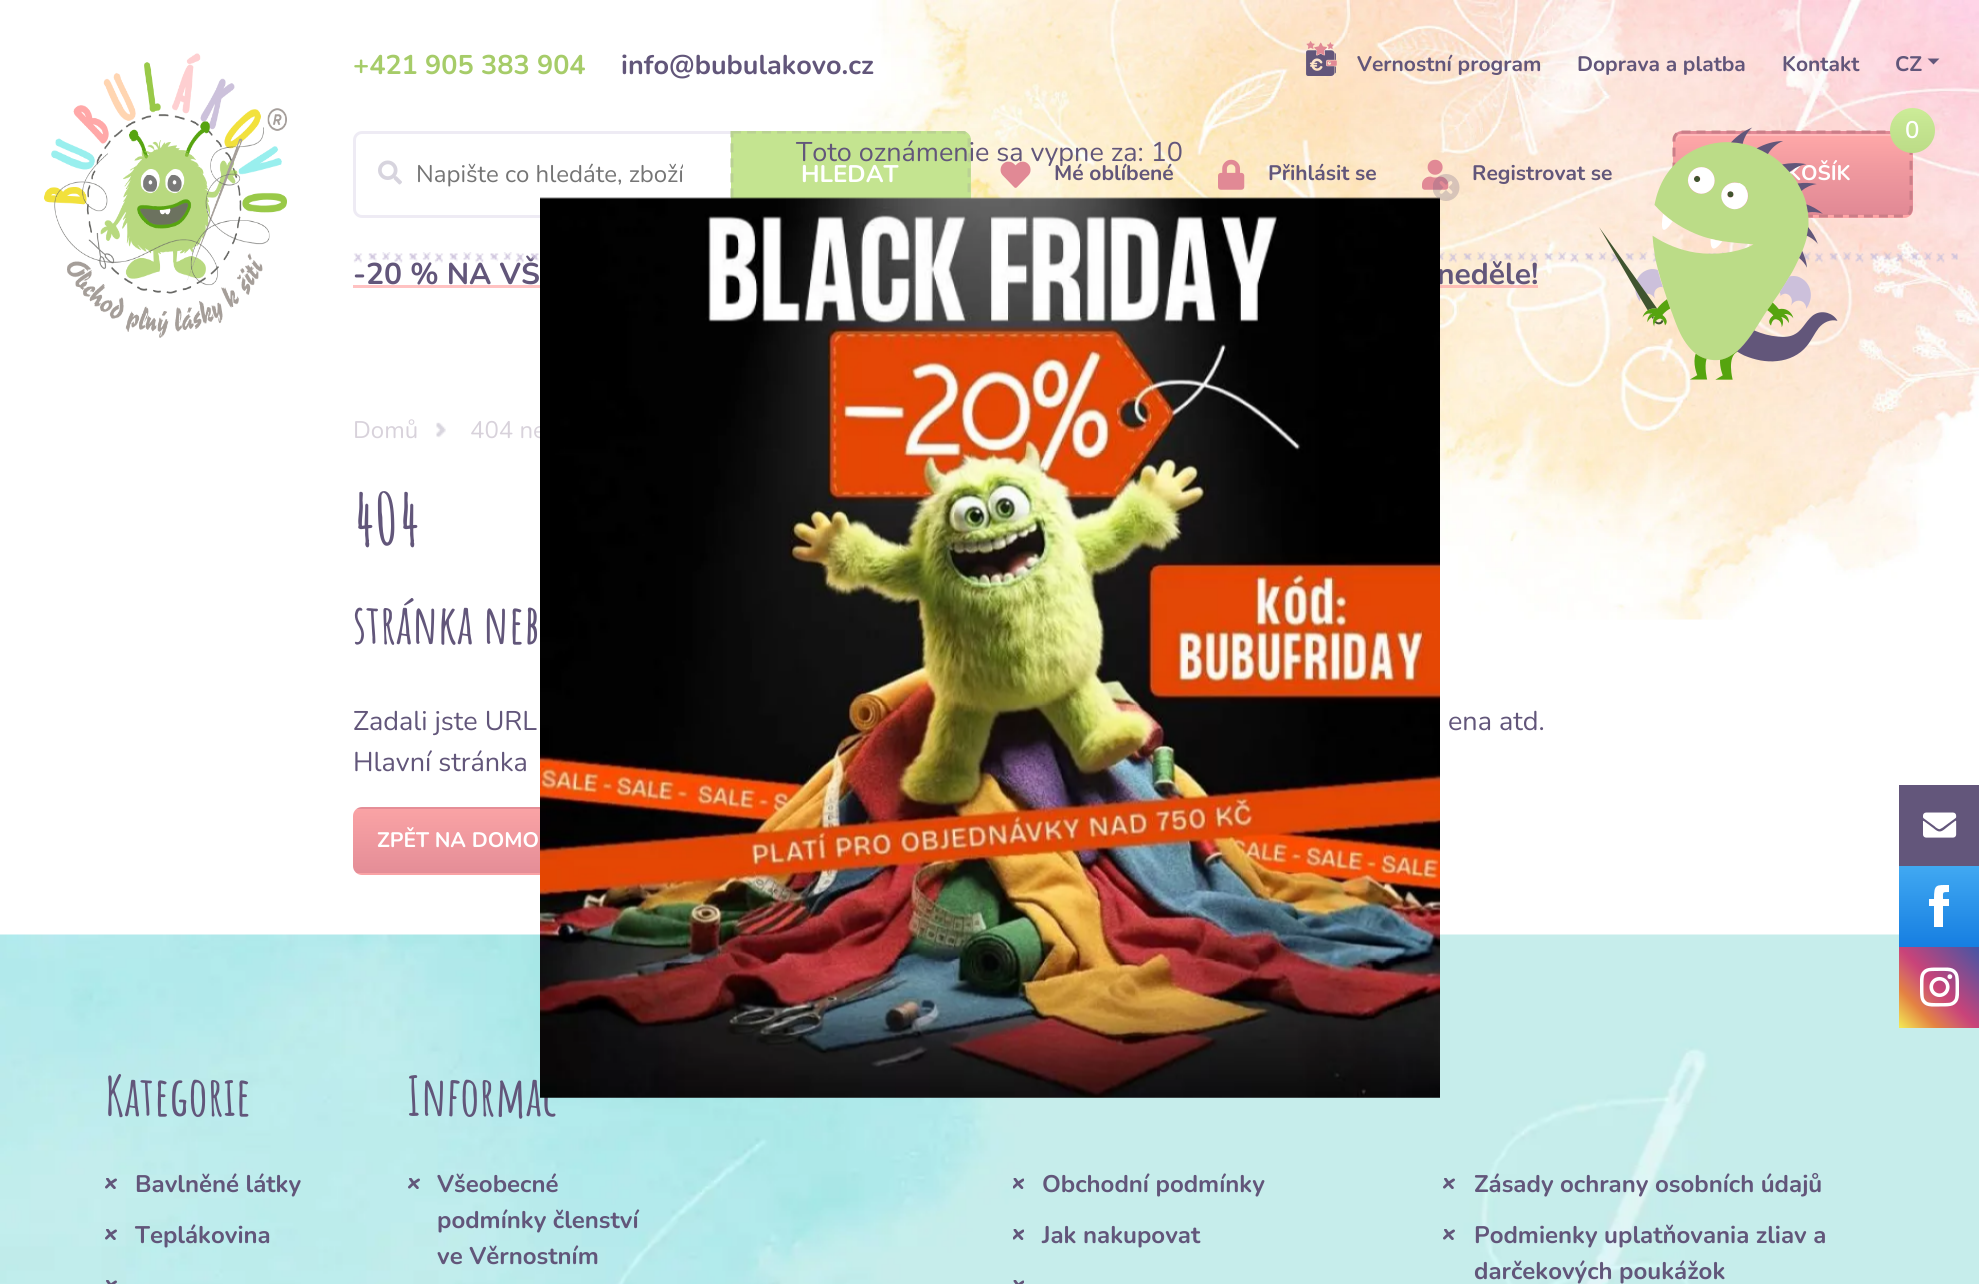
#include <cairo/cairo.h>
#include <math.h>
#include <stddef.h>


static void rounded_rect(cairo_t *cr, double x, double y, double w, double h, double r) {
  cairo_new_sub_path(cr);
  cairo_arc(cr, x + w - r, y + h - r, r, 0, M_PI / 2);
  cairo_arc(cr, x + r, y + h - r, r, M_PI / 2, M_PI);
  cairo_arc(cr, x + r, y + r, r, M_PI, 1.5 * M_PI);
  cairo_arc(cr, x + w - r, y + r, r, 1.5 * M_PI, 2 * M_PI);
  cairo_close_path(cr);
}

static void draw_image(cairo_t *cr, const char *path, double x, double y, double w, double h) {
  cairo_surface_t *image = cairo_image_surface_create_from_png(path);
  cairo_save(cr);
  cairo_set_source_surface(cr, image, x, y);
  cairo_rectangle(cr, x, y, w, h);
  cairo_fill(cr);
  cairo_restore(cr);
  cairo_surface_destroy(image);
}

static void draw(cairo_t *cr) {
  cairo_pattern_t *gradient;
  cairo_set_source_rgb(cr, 1, 1, 1);
  cairo_paint(cr);
  draw_image(cr, "images/1.png", 835, 0, 1144, 620);
  draw_image(cr, "images/2.png", 44, 53, 243, 285);
  draw_image(cr, "images/4.png", 1306, 41, 31, 35);
  cairo_set_source_rgb(cr, 98 / 255.0, 86 / 255.0, 122 / 255.0);
  cairo_new_path(cr);
  cairo_move_to(cr, 1927.5, 58.5);
  cairo_line_to(cr, 1939.5, 58.5);
  cairo_line_to(cr, 1933.5, 64.5);
  cairo_close_path(cr);
  cairo_fill(cr);
  cairo_set_source_rgb(cr, 1, 1, 1);
  rounded_rect(cr, 354.5, 132.5, 615, 84, 7.5);
  cairo_fill_preserve(cr);
  cairo_set_source_rgb(cr, 238 / 255.0, 235 / 255.0, 244 / 255.0);
  cairo_set_line_width(cr, 3);
  cairo_stroke(cr);
  draw_image(cr, "images/5.png", 378, 160, 24, 25);
  cairo_set_source_rgb(cr, 196 / 255.0, 228 / 255.0, 144 / 255.0);
  cairo_new_path(cr);
  cairo_move_to(cr, 731, 131);
  cairo_line_to(cr, 962, 131);
  cairo_curve_to(cr, 967, 131, 971, 135, 971, 140);
  cairo_line_to(cr, 971, 209);
  cairo_curve_to(cr, 971, 214, 967, 218, 962, 218);
  cairo_line_to(cr, 731, 218);
  cairo_close_path(cr);
  cairo_fill(cr);
  cairo_save(cr);
  cairo_rectangle(cr, 353, 131, 618, 87);
  cairo_clip(cr);
  cairo_new_path(cr);
  cairo_move_to(cr, 732, 132);
  cairo_line_to(cr, 961.5, 132);
  cairo_curve_to(cr, 965.5, 132, 969, 135.5, 969, 139.5);
  cairo_line_to(cr, 969, 208.5);
  cairo_curve_to(cr, 969, 212.5, 965.5, 216, 961.5, 216);
  cairo_line_to(cr, 732, 216);
  cairo_close_path(cr);
  cairo_set_source_rgb(cr, 186 / 255.0, 209 / 255.0, 147 / 255.0);
  cairo_set_dash(cr, (double[]){9, 6}, 2, 0);
  cairo_stroke(cr);
  cairo_restore(cr);
  draw_image(cr, "images/6.png", 1000, 161, 31, 27);
  draw_image(cr, "images/7.png", 1218, 159, 27, 31);
  draw_image(cr, "images/8.png", 1422, 159, 27, 31);
  cairo_save(cr);
  rounded_rect(cr, 1673, 131, 240, 87, 9);
  cairo_clip(cr);
  gradient = cairo_pattern_create_linear(1793, 134, 1793, 53);
  cairo_pattern_add_color_stop_rgba(gradient, 0.01, 225 / 255.0, 137 / 255.0, 149 / 255.0, 1);
  cairo_pattern_add_color_stop_rgba(gradient, 0.57, 240 / 255.0, 153 / 255.0, 159 / 255.0, 1);
  cairo_pattern_add_color_stop_rgba(gradient, 1, 1, 168 / 255.0, 168 / 255.0, 1);
  cairo_set_source(cr, gradient);
  cairo_pattern_destroy(gradient);
  cairo_rectangle(cr, 1673, 131, 218, 3);
  cairo_fill(cr);
  gradient = cairo_pattern_create_linear(1793, 215, 1793, 134);
  cairo_pattern_add_color_stop_rgba(gradient, 0.01, 225 / 255.0, 137 / 255.0, 149 / 255.0, 1);
  cairo_pattern_add_color_stop_rgba(gradient, 0.57, 240 / 255.0, 153 / 255.0, 159 / 255.0, 1);
  cairo_pattern_add_color_stop_rgba(gradient, 1, 1, 168 / 255.0, 168 / 255.0, 1);
  cairo_set_source(cr, gradient);
  cairo_pattern_destroy(gradient);
  cairo_rectangle(cr, 1673, 134, 240, 81);
  cairo_fill(cr);
  cairo_restore(cr);
  cairo_set_source_rgb(cr, 1, 184 / 255.0, 185 / 255.0);
  cairo_new_path(cr);
  cairo_move_to(cr, 1682, 136);
  cairo_line_to(cr, 1904, 136);
  cairo_curve_to(cr, 1907, 136, 1910, 139, 1910, 142);
  cairo_line_to(cr, 1910, 140);
  cairo_curve_to(cr, 1910, 137, 1907, 134, 1904, 134);
  cairo_line_to(cr, 1682, 134);
  cairo_curve_to(cr, 1679, 134, 1676, 137, 1676, 140);
  cairo_line_to(cr, 1676, 142);
  cairo_curve_to(cr, 1676, 139, 1678, 136, 1682, 136);
  cairo_close_path(cr);
  cairo_fill(cr);
  cairo_save(cr);
  rounded_rect(cr, 1673, 131, 240, 87, 9);
  cairo_clip(cr);
  gradient = cairo_pattern_create_linear(1793, 296, 1793, 215);
  cairo_pattern_add_color_stop_rgba(gradient, 0.01, 225 / 255.0, 137 / 255.0, 149 / 255.0, 1);
  cairo_pattern_add_color_stop_rgba(gradient, 0.57, 240 / 255.0, 153 / 255.0, 159 / 255.0, 1);
  cairo_pattern_add_color_stop_rgba(gradient, 1, 1, 168 / 255.0, 168 / 255.0, 1);
  cairo_set_source(cr, gradient);
  cairo_pattern_destroy(gradient);
  cairo_rectangle(cr, 1808, 215, 105, 3);
  cairo_fill(cr);
  cairo_restore(cr);
  cairo_new_path(cr);
  cairo_move_to(cr, 1681.5, 132);
  cairo_line_to(cr, 1903.5, 132);
  cairo_curve_to(cr, 1907.5, 132, 1911, 135.5, 1911, 139.5);
  cairo_line_to(cr, 1911, 208.5);
  cairo_curve_to(cr, 1911, 212.5, 1907.5, 216, 1903.5, 216);
  cairo_line_to(cr, 1681.5, 216);
  cairo_curve_to(cr, 1677.5, 216, 1674, 212.5, 1674, 208.5);
  cairo_line_to(cr, 1674, 139.5);
  cairo_curve_to(cr, 1674, 135.5, 1677.5, 132, 1681.5, 132);
  cairo_close_path(cr);
  cairo_set_source_rgb(cr, 203 / 255.0, 126 / 255.0, 136 / 255.0);
  cairo_set_dash(cr, (double[]){9, 6}, 2, 0);
  cairo_stroke(cr);
  gradient = cairo_pattern_create_linear(1913, 153, 1913, 108);
  cairo_pattern_add_color_stop_rgba(gradient, 0.01, 188 / 255.0, 220 / 255.0, 135 / 255.0, 1);
  cairo_pattern_add_color_stop_rgba(gradient, 0.58, 196 / 255.0, 228 / 255.0, 144 / 255.0, 1);
  cairo_pattern_add_color_stop_rgba(gradient, 1, 204 / 255.0, 236 / 255.0, 152 / 255.0, 1);
  cairo_set_source(cr, gradient);
  cairo_pattern_destroy(gradient);
  cairo_arc(cr, 1912.5, 130.5, 22.5, 0, 2 * M_PI);
  cairo_fill(cr);
  draw_image(cr, "images/9.png", 1738, 182, 8, 6);
  cairo_set_source_rgba(cr, 1, 168 / 255.0, 168 / 255.0, 0.7);
  cairo_rectangle(cr, 353, 285, 1185, 3);
  cairo_fill(cr);
  draw_image(cr, "images/13.png", 436, 422, 10, 16);
  cairo_save(cr);
  rounded_rect(cr, 353, 807, 391, 68, 9);
  cairo_clip(cr);
  gradient = cairo_pattern_create_linear(548, 744, 548, 809);
  cairo_pattern_add_color_stop_rgba(gradient, 0, 250 / 255.0, 163 / 255.0, 165 / 255.0, 1);
  cairo_pattern_add_color_stop_rgba(gradient, 1, 228 / 255.0, 141 / 255.0, 151 / 255.0, 1);
  cairo_set_source(cr, gradient);
  cairo_pattern_destroy(gradient);
  cairo_rectangle(cr, 353, 807, 187, 2);
  cairo_fill(cr);
  gradient = cairo_pattern_create_linear(548, 809, 548, 873);
  cairo_pattern_add_color_stop_rgba(gradient, 0, 250 / 255.0, 163 / 255.0, 165 / 255.0, 1);
  cairo_pattern_add_color_stop_rgba(gradient, 1, 228 / 255.0, 141 / 255.0, 151 / 255.0, 1);
  cairo_set_source(cr, gradient);
  cairo_pattern_destroy(gradient);
  cairo_rectangle(cr, 353, 809, 187, 64);
  cairo_fill(cr);
  gradient = cairo_pattern_create_linear(548, 873, 548, 938);
  cairo_pattern_add_color_stop_rgba(gradient, 0, 250 / 255.0, 163 / 255.0, 165 / 255.0, 1);
  cairo_pattern_add_color_stop_rgba(gradient, 1, 228 / 255.0, 141 / 255.0, 151 / 255.0, 1);
  cairo_set_source(cr, gradient);
  cairo_pattern_destroy(gradient);
  cairo_rectangle(cr, 353, 873, 187, 2);
  cairo_fill(cr);
  cairo_restore(cr);
  draw_image(cr, "images/14.png", 1899, 785, 80, 81);
  draw_image(cr, "images/16.png", 0, 934, 1979, 350);
  gradient = cairo_pattern_create_linear(1940, 947, 1940, 865);
  cairo_pattern_add_color_stop_rgba(gradient, 0, 22 / 255.0, 126 / 255.0, 225 / 255.0, 1);
  cairo_pattern_add_color_stop_rgba(gradient, 1, 65 / 255.0, 169 / 255.0, 242 / 255.0, 1);
  cairo_set_source(cr, gradient);
  cairo_pattern_destroy(gradient);
  cairo_rectangle(cr, 1899, 866, 80, 81);
  cairo_fill(cr);
  cairo_set_source_rgb(cr, 1, 1, 1);
  cairo_new_path(cr);
  cairo_move_to(cr, 1934, 927);
  cairo_line_to(cr, 1943, 927);
  cairo_line_to(cr, 1943, 906);
  cairo_line_to(cr, 1949, 906);
  cairo_line_to(cr, 1949, 899);
  cairo_line_to(cr, 1943, 899);
  cairo_curve_to(cr, 1943, 892, 1942, 892, 1949, 892);
  cairo_line_to(cr, 1949, 885);
  cairo_curve_to(cr, 1936, 885, 1934, 884, 1934, 899);
  cairo_line_to(cr, 1929, 899);
  cairo_line_to(cr, 1929, 906);
  cairo_line_to(cr, 1934, 906);
  cairo_close_path(cr);
  cairo_fill(cr);
  draw_image(cr, "images/15.png", 1899, 947, 80, 81);
  draw_image(cr, "images/17.png", 105, 1178, 12, 11);
  draw_image(cr, "images/18.png", 105, 1229, 12, 11);
  draw_image(cr, "images/19.png", 106, 1280, 11, 4);
  draw_image(cr, "images/20.png", 408, 1178, 12, 11);
  draw_image(cr, "images/21.png", 1013, 1178, 11, 11);
  draw_image(cr, "images/22.png", 1013, 1229, 11, 11);
  draw_image(cr, "images/23.png", 1013, 1280, 11, 4);
  draw_image(cr, "images/24.png", 1443, 1178, 12, 11);
  draw_image(cr, "images/24.png", 1443, 1229, 12, 11);
  cairo_select_font_face(cr, "Nunito", CAIRO_FONT_SLANT_NORMAL, CAIRO_FONT_WEIGHT_BOLD);
  cairo_set_font_size(cr, 27);
  cairo_set_source_rgb(cr, 166 / 255.0, 204 / 255.0, 105 / 255.0);
  cairo_move_to(cr, 353, 74);
  cairo_show_text(cr, "+421 905 383 904");
  cairo_set_source_rgb(cr, 98 / 255.0, 86 / 255.0, 122 / 255.0);
  cairo_move_to(cr, 621, 74);
  cairo_show_text(cr, "info@bubulakovo.cz");
  cairo_set_font_size(cr, 21);
  cairo_move_to(cr, 1357, 71);
  cairo_show_text(cr, "Vernostní program");
  cairo_move_to(cr, 1577, 71);
  cairo_show_text(cr, "Doprava a platba");
  cairo_move_to(cr, 1782, 71);
  cairo_show_text(cr, "Kontakt");
  cairo_move_to(cr, 1895, 71);
  cairo_show_text(cr, "CZ");
  cairo_save(cr);
  cairo_rectangle(cr, 416, 158, 267, 33);
  cairo_clip(cr);
  cairo_select_font_face(cr, "Nunito", CAIRO_FONT_SLANT_NORMAL, CAIRO_FONT_WEIGHT_NORMAL);
  cairo_set_font_size(cr, 24);
  cairo_set_source_rgb(cr, 117 / 255.0, 117 / 255.0, 117 / 255.0);
  cairo_move_to(cr, 416, 182);
  cairo_show_text(cr, "Napište co hledáte, zboží");
  cairo_restore(cr);
  cairo_set_font_size(cr, 24);
  cairo_set_source_rgb(cr, 1, 1, 1);
  cairo_move_to(cr, 801, 182);
  cairo_show_text(cr, "HLEDAT");
  cairo_set_font_size(cr, 21);
  cairo_set_source_rgb(cr, 98 / 255.0, 86 / 255.0, 122 / 255.0);
  cairo_move_to(cr, 1054, 180);
  cairo_show_text(cr, "Mé oblíbené");
  cairo_move_to(cr, 1268, 180);
  cairo_show_text(cr, "Přihlásit se");
  cairo_move_to(cr, 1472, 180);
  cairo_show_text(cr, "Registrovat se");
  cairo_select_font_face(cr, "Nunito SemiBold", CAIRO_FONT_SLANT_NORMAL, CAIRO_FONT_WEIGHT_NORMAL);
  cairo_set_font_size(cr, 24);
  cairo_set_source_rgb(cr, 1, 1, 1);
  cairo_move_to(cr, 1905, 138);
  cairo_show_text(cr, "0");
  cairo_select_font_face(cr, "Nunito", CAIRO_FONT_SLANT_NORMAL, CAIRO_FONT_WEIGHT_BOLD);
  cairo_set_font_size(cr, 21);
  cairo_move_to(cr, 1787, 180);
  cairo_show_text(cr, "KOŠÍK");
  cairo_set_font_size(cr, 30);
  cairo_set_source_rgb(cr, 98 / 255.0, 86 / 255.0, 122 / 255.0);
  cairo_move_to(cr, 353, 284);
  cairo_show_text(cr, "-20 % NA VŠ");
  cairo_move_to(cr, 1437, 284);
  cairo_show_text(cr, "neděle!");
  draw_image(cr, "images/3.png", 353, 252, 1605, 11);
  cairo_select_font_face(cr, "Nunito", CAIRO_FONT_SLANT_NORMAL, CAIRO_FONT_WEIGHT_NORMAL);
  cairo_set_font_size(cr, 27);
  cairo_move_to(cr, 796, 161);
  cairo_show_text(cr, "Toto oznámenie sa vypne za: 10");
  draw_image(cr, "images/12.png", 1599, 127, 239, 253);
  cairo_set_font_size(cr, 24);
  cairo_set_source_rgb(cr, 216 / 255.0, 210 / 255.0, 219 / 255.0);
  cairo_move_to(cr, 353, 438);
  cairo_show_text(cr, "Domů");
  cairo_move_to(cr, 470, 438);
  cairo_show_text(cr, "404 ne");
  cairo_select_font_face(cr, "Amatic SC", CAIRO_FONT_SLANT_NORMAL, CAIRO_FONT_WEIGHT_BOLD);
  cairo_set_font_size(cr, 72);
  cairo_set_source_rgb(cr, 98 / 255.0, 86 / 255.0, 122 / 255.0);
  cairo_move_to(cr, 353, 546);
  cairo_show_text(cr, "404");
  cairo_set_font_size(cr, 54);
  cairo_move_to(cr, 353, 644);
  cairo_show_text(cr, "stránka neb");
  cairo_select_font_face(cr, "Nunito", CAIRO_FONT_SLANT_NORMAL, CAIRO_FONT_WEIGHT_NORMAL);
  cairo_set_font_size(cr, 27);
  cairo_move_to(cr, 353, 730);
  cairo_show_text(cr, "Zadali jste URL");
  cairo_move_to(cr, 1448, 730);
  cairo_show_text(cr, "ena atd.");
  cairo_move_to(cr, 353, 771);
  cairo_show_text(cr, "Hlavní stránka");
  cairo_select_font_face(cr, "Nunito", CAIRO_FONT_SLANT_NORMAL, CAIRO_FONT_WEIGHT_BOLD);
  cairo_set_font_size(cr, 21);
  cairo_set_source_rgb(cr, 1, 1, 1);
  cairo_move_to(cr, 377, 847);
  cairo_show_text(cr, "ZPĚT NA DOMO");
  cairo_select_font_face(cr, "Amatic SC", CAIRO_FONT_SLANT_NORMAL, CAIRO_FONT_WEIGHT_BOLD);
  cairo_set_font_size(cr, 54);
  cairo_set_source_rgb(cr, 98 / 255.0, 86 / 255.0, 122 / 255.0);
  cairo_move_to(cr, 105, 1116);
  cairo_show_text(cr, "Kategorie");
  cairo_select_font_face(cr, "Nunito", CAIRO_FONT_SLANT_NORMAL, CAIRO_FONT_WEIGHT_BOLD);
  cairo_set_font_size(cr, 24);
  cairo_move_to(cr, 135, 1192);
  cairo_show_text(cr, "Bavlněné látky");
  cairo_move_to(cr, 135, 1243);
  cairo_show_text(cr, "Teplákovina");
  cairo_select_font_face(cr, "Amatic SC", CAIRO_FONT_SLANT_NORMAL, CAIRO_FONT_WEIGHT_BOLD);
  cairo_set_font_size(cr, 54);
  cairo_move_to(cr, 407, 1116);
  cairo_show_text(cr, "Informac");
  draw_image(cr, "images/11.png", 540, 197, 900, 901);
  draw_image(cr, "images/10.png", 1433, 174, 27, 27);
  cairo_select_font_face(cr, "Nunito", CAIRO_FONT_SLANT_NORMAL, CAIRO_FONT_WEIGHT_BOLD);
  cairo_set_font_size(cr, 24);
  cairo_move_to(cr, 437, 1192);
  cairo_show_text(cr, "Všeobecné");
  cairo_move_to(cr, 437, 1228);
  cairo_show_text(cr, "podmínky členství");
  cairo_move_to(cr, 437, 1264);
  cairo_show_text(cr, "ve Věrnostním");
  cairo_move_to(cr, 1042, 1192);
  cairo_show_text(cr, "Obchodní podmínky");
  cairo_move_to(cr, 1042, 1243);
  cairo_show_text(cr, "Jak nakupovat");
  cairo_move_to(cr, 1474, 1192);
  cairo_show_text(cr, "Zásady ochrany osobních údajů");
  cairo_move_to(cr, 1474, 1243);
  cairo_show_text(cr, "Podmienky uplatňovania zliav a");
  cairo_move_to(cr, 1474, 1279);
  cairo_show_text(cr, "darčekových poukážok");
}

int main(void) {
  cairo_surface_t *surface = cairo_image_surface_create(CAIRO_FORMAT_RGB24, 1979, 1284);
  cairo_t *cr = cairo_create(surface);
  cairo_font_options_t *options = cairo_font_options_create();
  cairo_font_options_set_hint_metrics(options, CAIRO_HINT_METRICS_OFF);
  cairo_font_options_set_hint_style(options, CAIRO_HINT_STYLE_NONE);
  cairo_set_font_options(cr, options);
  cairo_set_miter_limit(cr, 4);
  draw(cr);
  cairo_surface_write_to_png(surface, "out.png");
  cairo_font_options_destroy(options);
  cairo_destroy(cr);
  cairo_surface_destroy(surface);
  return 0;
}
